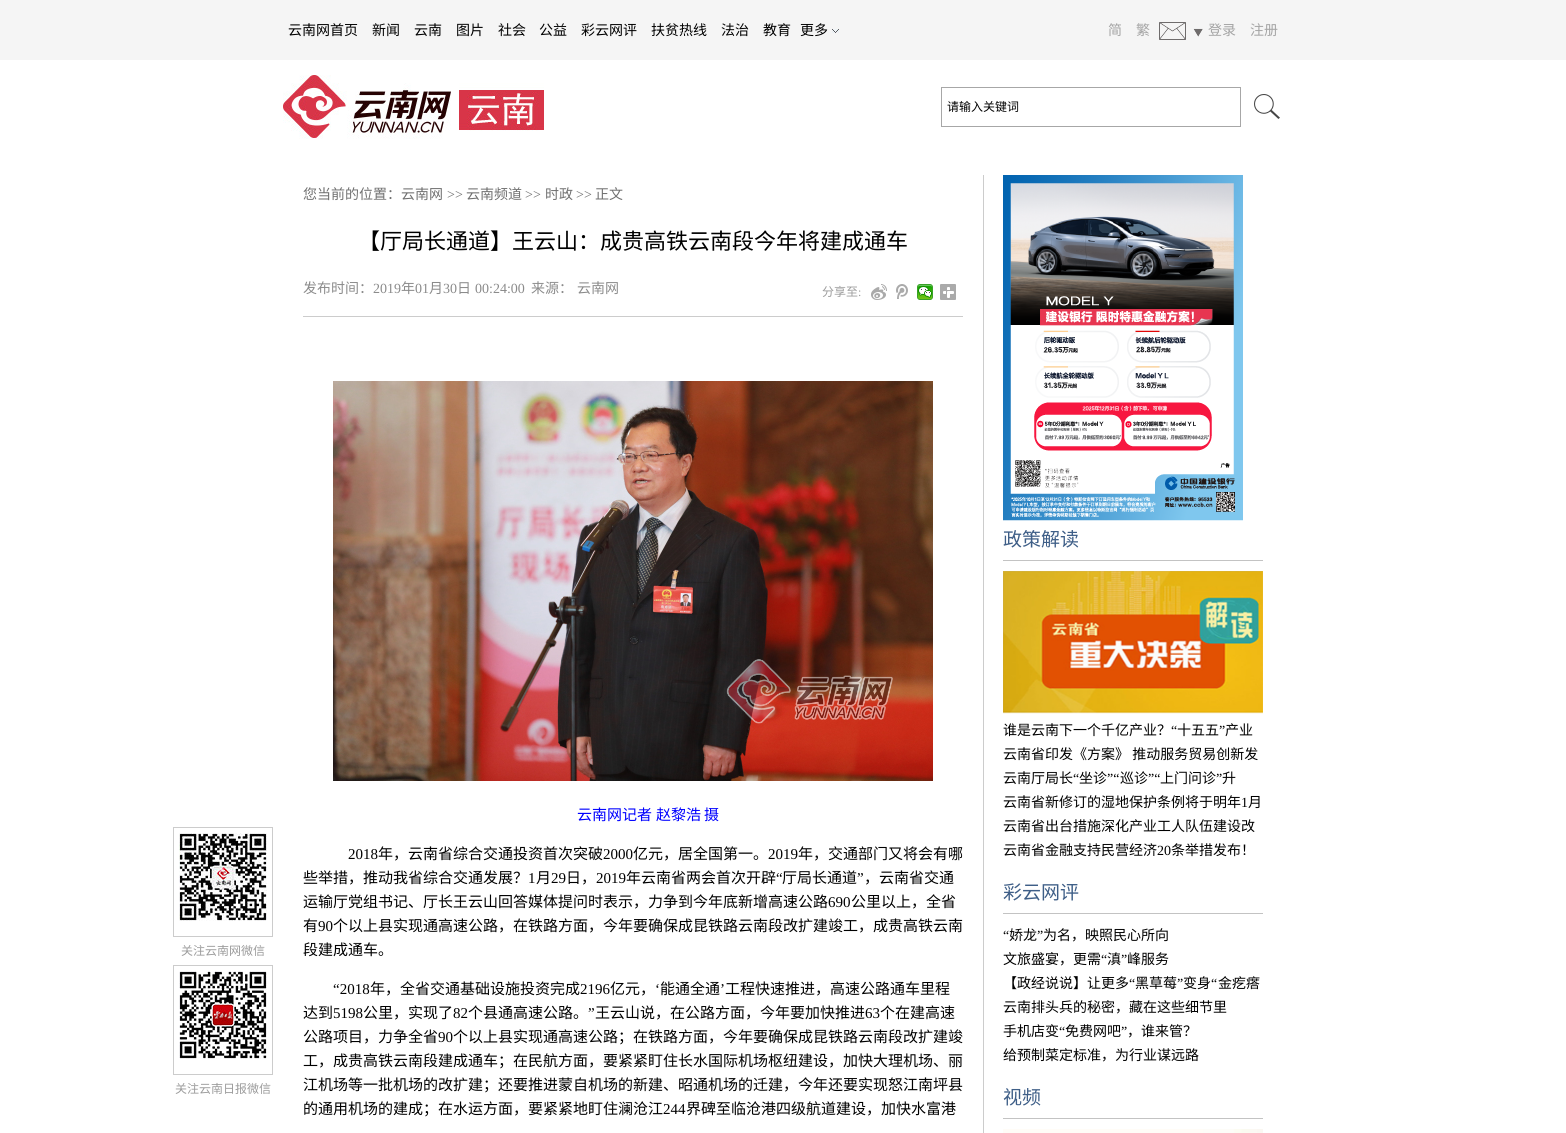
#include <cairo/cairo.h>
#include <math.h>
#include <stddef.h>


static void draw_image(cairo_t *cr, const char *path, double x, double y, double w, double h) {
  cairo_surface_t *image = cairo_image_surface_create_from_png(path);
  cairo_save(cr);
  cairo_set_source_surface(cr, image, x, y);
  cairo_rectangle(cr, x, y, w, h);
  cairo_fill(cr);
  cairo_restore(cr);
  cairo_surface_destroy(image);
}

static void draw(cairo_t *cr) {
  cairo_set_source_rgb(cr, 1, 1, 1);
  cairo_paint(cr);
  cairo_set_source_rgb(cr, 245 / 255.0, 245 / 255.0, 245 / 255.0);
  cairo_rectangle(cr, 0, 0, 1566, 60);
  cairo_fill(cr);
  draw_image(cr, "images/1.png", 832, 29, 7, 4);
  draw_image(cr, "images/2.png", 1159, 22, 44, 18);
  draw_image(cr, "images/3.png", 283, 75, 261, 64);
  cairo_rectangle(cr, 941.5, 87.5, 299, 39);
  cairo_set_source_rgb(cr, 167 / 255.0, 167 / 255.0, 167 / 255.0);
  cairo_set_line_width(cr, 1);
  cairo_stroke(cr);
  draw_image(cr, "images/4.png", 1254, 94, 26, 25);
  cairo_rectangle(cr, 173.5, 827.5, 99, 109);
  cairo_set_source_rgb(cr, 204 / 255.0, 204 / 255.0, 204 / 255.0);
  cairo_stroke(cr);
  draw_image(cr, "images/5.png", 179, 833, 88, 88);
  cairo_rectangle(cr, 173.5, 965.5, 99, 109);
  cairo_stroke(cr);
  draw_image(cr, "images/6.png", 179, 971, 88, 88);
  cairo_rectangle(cr, 983, 175, 1, 958);
  cairo_fill(cr);
  draw_image(cr, "images/7.png", 871, 284, 16, 16);
  draw_image(cr, "images/8.png", 896, 284, 12, 15);
  draw_image(cr, "images/9.png", 917, 284, 16, 16);
  draw_image(cr, "images/10.png", 940, 284, 16, 16);
  cairo_rectangle(cr, 303, 316, 660, 1);
  cairo_fill(cr);
  draw_image(cr, "images/11.png", 333, 381, 600, 400);
  draw_image(cr, "images/12.png", 1003, 175, 240, 346);
  cairo_set_source_rgb(cr, 195 / 255.0, 195 / 255.0, 195 / 255.0);
  cairo_rectangle(cr, 1003, 560, 260, 1);
  cairo_fill(cr);
  draw_image(cr, "images/13.png", 1003, 571, 260, 143);
  cairo_rectangle(cr, 1003, 913, 260, 1);
  cairo_fill(cr);
  cairo_rectangle(cr, 1003, 1118, 260, 1);
  cairo_fill(cr);
  draw_image(cr, "images/14.png", 1003, 1129, 260, 4);
  cairo_select_font_face(cr, "Noto Sans CJK SC", CAIRO_FONT_SLANT_NORMAL, CAIRO_FONT_WEIGHT_NORMAL);
  cairo_set_font_size(cr, 14);
  cairo_set_source_rgb(cr, 0, 0, 0);
  cairo_move_to(cr, 288, 35);
  cairo_show_text(cr, "云南网首页");
  cairo_move_to(cr, 372, 35);
  cairo_show_text(cr, "新闻");
  cairo_move_to(cr, 414, 35);
  cairo_show_text(cr, "云南");
  cairo_move_to(cr, 456, 35);
  cairo_show_text(cr, "图片");
  cairo_move_to(cr, 498, 35);
  cairo_show_text(cr, "社会");
  cairo_move_to(cr, 539, 35);
  cairo_show_text(cr, "公益");
  cairo_move_to(cr, 581, 35);
  cairo_show_text(cr, "彩云网评");
  cairo_move_to(cr, 651, 35);
  cairo_show_text(cr, "扶贫热线");
  cairo_move_to(cr, 721, 35);
  cairo_show_text(cr, "法治");
  cairo_move_to(cr, 763, 35);
  cairo_show_text(cr, "教育");
  cairo_move_to(cr, 800, 35);
  cairo_show_text(cr, "更多");
  cairo_set_source_rgb(cr, 164 / 255.0, 164 / 255.0, 164 / 255.0);
  cairo_move_to(cr, 1108, 35);
  cairo_show_text(cr, "简");
  cairo_move_to(cr, 1136, 35);
  cairo_show_text(cr, "繁");
  cairo_move_to(cr, 1208, 35);
  cairo_show_text(cr, "登录");
  cairo_move_to(cr, 1250, 35);
  cairo_show_text(cr, "注册");
  cairo_set_font_size(cr, 12);
  cairo_set_source_rgb(cr, 0, 0, 0);
  cairo_move_to(cr, 947, 111);
  cairo_show_text(cr, "请输入关键词");
  cairo_set_source_rgb(cr, 155 / 255.0, 155 / 255.0, 155 / 255.0);
  cairo_move_to(cr, 181, 955);
  cairo_show_text(cr, "关注云南网微信");
  cairo_move_to(cr, 175, 1093);
  cairo_show_text(cr, "关注云南日报微信");
  cairo_set_font_size(cr, 14);
  cairo_set_source_rgb(cr, 112 / 255.0, 112 / 255.0, 112 / 255.0);
  cairo_move_to(cr, 303, 199);
  cairo_show_text(cr, "您当前的位置：云南网");
  cairo_select_font_face(cr, "Liberation Serif", CAIRO_FONT_SLANT_NORMAL, CAIRO_FONT_WEIGHT_NORMAL);
  cairo_move_to(cr, 447, 199);
  cairo_show_text(cr, ">>");
  cairo_select_font_face(cr, "Noto Sans CJK SC", CAIRO_FONT_SLANT_NORMAL, CAIRO_FONT_WEIGHT_NORMAL);
  cairo_move_to(cr, 466, 199);
  cairo_show_text(cr, "云南频道");
  cairo_select_font_face(cr, "Liberation Serif", CAIRO_FONT_SLANT_NORMAL, CAIRO_FONT_WEIGHT_NORMAL);
  cairo_move_to(cr, 525, 199);
  cairo_show_text(cr, ">>");
  cairo_select_font_face(cr, "Noto Sans CJK SC", CAIRO_FONT_SLANT_NORMAL, CAIRO_FONT_WEIGHT_NORMAL);
  cairo_move_to(cr, 545, 199);
  cairo_show_text(cr, "时政");
  cairo_select_font_face(cr, "Liberation Serif", CAIRO_FONT_SLANT_NORMAL, CAIRO_FONT_WEIGHT_NORMAL);
  cairo_move_to(cr, 576, 199);
  cairo_show_text(cr, ">>");
  cairo_select_font_face(cr, "Noto Sans CJK SC", CAIRO_FONT_SLANT_NORMAL, CAIRO_FONT_WEIGHT_NORMAL);
  cairo_move_to(cr, 595, 199);
  cairo_show_text(cr, "正文");
  cairo_set_font_size(cr, 22);
  cairo_set_source_rgb(cr, 0, 0, 0);
  cairo_move_to(cr, 358, 249);
  cairo_show_text(cr, "【厅局长通道】王云山：成贵高铁云南段今年将建成通车");
  cairo_set_font_size(cr, 14);
  cairo_set_source_rgb(cr, 139 / 255.0, 139 / 255.0, 139 / 255.0);
  cairo_move_to(cr, 303, 293);
  cairo_show_text(cr, "发布时间：");
  cairo_select_font_face(cr, "Liberation Serif", CAIRO_FONT_SLANT_NORMAL, CAIRO_FONT_WEIGHT_NORMAL);
  cairo_move_to(cr, 373, 293);
  cairo_show_text(cr, "2019");
  cairo_select_font_face(cr, "Noto Sans CJK SC", CAIRO_FONT_SLANT_NORMAL, CAIRO_FONT_WEIGHT_NORMAL);
  cairo_move_to(cr, 401, 293);
  cairo_show_text(cr, "年");
  cairo_select_font_face(cr, "Liberation Serif", CAIRO_FONT_SLANT_NORMAL, CAIRO_FONT_WEIGHT_NORMAL);
  cairo_move_to(cr, 415, 293);
  cairo_show_text(cr, "01");
  cairo_select_font_face(cr, "Noto Sans CJK SC", CAIRO_FONT_SLANT_NORMAL, CAIRO_FONT_WEIGHT_NORMAL);
  cairo_move_to(cr, 429, 293);
  cairo_show_text(cr, "月");
  cairo_select_font_face(cr, "Liberation Serif", CAIRO_FONT_SLANT_NORMAL, CAIRO_FONT_WEIGHT_NORMAL);
  cairo_move_to(cr, 443, 293);
  cairo_show_text(cr, "30");
  cairo_select_font_face(cr, "Noto Sans CJK SC", CAIRO_FONT_SLANT_NORMAL, CAIRO_FONT_WEIGHT_NORMAL);
  cairo_move_to(cr, 457, 293);
  cairo_show_text(cr, "日");
  cairo_select_font_face(cr, "Liberation Serif", CAIRO_FONT_SLANT_NORMAL, CAIRO_FONT_WEIGHT_NORMAL);
  cairo_move_to(cr, 475, 293);
  cairo_show_text(cr, "00:24:00");
  cairo_select_font_face(cr, "Noto Sans CJK SC", CAIRO_FONT_SLANT_NORMAL, CAIRO_FONT_WEIGHT_NORMAL);
  cairo_move_to(cr, 531, 293);
  cairo_show_text(cr, "来源：");
  cairo_move_to(cr, 577, 293);
  cairo_show_text(cr, "云南网");
  cairo_set_font_size(cr, 12);
  cairo_set_source_rgb(cr, 155 / 255.0, 155 / 255.0, 155 / 255.0);
  cairo_move_to(cr, 822, 296);
  cairo_show_text(cr, "分享至");
  cairo_select_font_face(cr, "Liberation Serif", CAIRO_FONT_SLANT_NORMAL, CAIRO_FONT_WEIGHT_NORMAL);
  cairo_move_to(cr, 858, 296);
  cairo_show_text(cr, ":");
  cairo_select_font_face(cr, "Noto Sans CJK SC", CAIRO_FONT_SLANT_NORMAL, CAIRO_FONT_WEIGHT_NORMAL);
  cairo_set_font_size(cr, 15);
  cairo_set_source_rgb(cr, 0, 0, 1);
  cairo_move_to(cr, 577, 820);
  cairo_show_text(cr, "云南网记者");
  cairo_move_to(cr, 656, 820);
  cairo_show_text(cr, "赵黎浩");
  cairo_move_to(cr, 704, 820);
  cairo_show_text(cr, "摄");
  cairo_select_font_face(cr, "Liberation Serif", CAIRO_FONT_SLANT_NORMAL, CAIRO_FONT_WEIGHT_NORMAL);
  cairo_set_source_rgb(cr, 0, 0, 0);
  cairo_move_to(cr, 348, 859);
  cairo_show_text(cr, "2018");
  cairo_select_font_face(cr, "Noto Sans CJK SC", CAIRO_FONT_SLANT_NORMAL, CAIRO_FONT_WEIGHT_NORMAL);
  cairo_move_to(cr, 378, 859);
  cairo_show_text(cr, "年，云南省综合交通投资首次突破");
  cairo_select_font_face(cr, "Liberation Serif", CAIRO_FONT_SLANT_NORMAL, CAIRO_FONT_WEIGHT_NORMAL);
  cairo_move_to(cr, 603, 859);
  cairo_show_text(cr, "2000");
  cairo_select_font_face(cr, "Noto Sans CJK SC", CAIRO_FONT_SLANT_NORMAL, CAIRO_FONT_WEIGHT_NORMAL);
  cairo_move_to(cr, 633, 859);
  cairo_show_text(cr, "亿元，居全国第一。");
  cairo_select_font_face(cr, "Liberation Serif", CAIRO_FONT_SLANT_NORMAL, CAIRO_FONT_WEIGHT_NORMAL);
  cairo_move_to(cr, 768, 859);
  cairo_show_text(cr, "2019");
  cairo_select_font_face(cr, "Noto Sans CJK SC", CAIRO_FONT_SLANT_NORMAL, CAIRO_FONT_WEIGHT_NORMAL);
  cairo_move_to(cr, 798, 859);
  cairo_show_text(cr, "年，交通部门又将会有哪");
  cairo_move_to(cr, 303, 883);
  cairo_show_text(cr, "些举措，推动我省综合交通发展？");
  cairo_select_font_face(cr, "Liberation Serif", CAIRO_FONT_SLANT_NORMAL, CAIRO_FONT_WEIGHT_NORMAL);
  cairo_move_to(cr, 528, 883);
  cairo_show_text(cr, "1");
  cairo_select_font_face(cr, "Noto Sans CJK SC", CAIRO_FONT_SLANT_NORMAL, CAIRO_FONT_WEIGHT_NORMAL);
  cairo_move_to(cr, 536, 883);
  cairo_show_text(cr, "月");
  cairo_select_font_face(cr, "Liberation Serif", CAIRO_FONT_SLANT_NORMAL, CAIRO_FONT_WEIGHT_NORMAL);
  cairo_move_to(cr, 551, 883);
  cairo_show_text(cr, "29");
  cairo_select_font_face(cr, "Noto Sans CJK SC", CAIRO_FONT_SLANT_NORMAL, CAIRO_FONT_WEIGHT_NORMAL);
  cairo_move_to(cr, 566, 883);
  cairo_show_text(cr, "日，");
  cairo_select_font_face(cr, "Liberation Serif", CAIRO_FONT_SLANT_NORMAL, CAIRO_FONT_WEIGHT_NORMAL);
  cairo_move_to(cr, 596, 883);
  cairo_show_text(cr, "2019");
  cairo_select_font_face(cr, "Noto Sans CJK SC", CAIRO_FONT_SLANT_NORMAL, CAIRO_FONT_WEIGHT_NORMAL);
  cairo_move_to(cr, 626, 883);
  cairo_show_text(cr, "年云南省两会首次开辟");
  cairo_select_font_face(cr, "Liberation Serif", CAIRO_FONT_SLANT_NORMAL, CAIRO_FONT_WEIGHT_NORMAL);
  cairo_move_to(cr, 776, 883);
  cairo_show_text(cr, "“");
  cairo_select_font_face(cr, "Noto Sans CJK SC", CAIRO_FONT_SLANT_NORMAL, CAIRO_FONT_WEIGHT_NORMAL);
  cairo_move_to(cr, 782, 883);
  cairo_show_text(cr, "厅局长通道");
  cairo_select_font_face(cr, "Liberation Serif", CAIRO_FONT_SLANT_NORMAL, CAIRO_FONT_WEIGHT_NORMAL);
  cairo_move_to(cr, 857, 883);
  cairo_show_text(cr, "”");
  cairo_select_font_face(cr, "Noto Sans CJK SC", CAIRO_FONT_SLANT_NORMAL, CAIRO_FONT_WEIGHT_NORMAL);
  cairo_move_to(cr, 864, 883);
  cairo_show_text(cr, "，云南省交通");
  cairo_move_to(cr, 303, 907);
  cairo_show_text(cr, "运输厅党组书记、厅长王云山回答媒体提问时表示，力争到今年底新增高速公路");
  cairo_select_font_face(cr, "Liberation Serif", CAIRO_FONT_SLANT_NORMAL, CAIRO_FONT_WEIGHT_NORMAL);
  cairo_move_to(cr, 828, 907);
  cairo_show_text(cr, "690");
  cairo_select_font_face(cr, "Noto Sans CJK SC", CAIRO_FONT_SLANT_NORMAL, CAIRO_FONT_WEIGHT_NORMAL);
  cairo_move_to(cr, 851, 907);
  cairo_show_text(cr, "公里以上，全省");
  cairo_move_to(cr, 303, 931);
  cairo_show_text(cr, "有");
  cairo_select_font_face(cr, "Liberation Serif", CAIRO_FONT_SLANT_NORMAL, CAIRO_FONT_WEIGHT_NORMAL);
  cairo_move_to(cr, 318, 931);
  cairo_show_text(cr, "90");
  cairo_select_font_face(cr, "Noto Sans CJK SC", CAIRO_FONT_SLANT_NORMAL, CAIRO_FONT_WEIGHT_NORMAL);
  cairo_move_to(cr, 333, 931);
  cairo_show_text(cr, "个以上县实现通高速公路，在铁路方面，今年要确保成昆铁路云南段改扩建竣工，成贵高铁云南");
  cairo_move_to(cr, 303, 955);
  cairo_show_text(cr, "段建成通车。");
  cairo_select_font_face(cr, "Liberation Serif", CAIRO_FONT_SLANT_NORMAL, CAIRO_FONT_WEIGHT_NORMAL);
  cairo_move_to(cr, 333, 994);
  cairo_show_text(cr, "“2018");
  cairo_select_font_face(cr, "Noto Sans CJK SC", CAIRO_FONT_SLANT_NORMAL, CAIRO_FONT_WEIGHT_NORMAL);
  cairo_move_to(cr, 370, 994);
  cairo_show_text(cr, "年，全省交通基础设施投资完成");
  cairo_select_font_face(cr, "Liberation Serif", CAIRO_FONT_SLANT_NORMAL, CAIRO_FONT_WEIGHT_NORMAL);
  cairo_move_to(cr, 580, 994);
  cairo_show_text(cr, "2196");
  cairo_select_font_face(cr, "Noto Sans CJK SC", CAIRO_FONT_SLANT_NORMAL, CAIRO_FONT_WEIGHT_NORMAL);
  cairo_move_to(cr, 610, 994);
  cairo_show_text(cr, "亿元，");
  cairo_select_font_face(cr, "Liberation Serif", CAIRO_FONT_SLANT_NORMAL, CAIRO_FONT_WEIGHT_NORMAL);
  cairo_move_to(cr, 655, 994);
  cairo_show_text(cr, "‘");
  cairo_select_font_face(cr, "Noto Sans CJK SC", CAIRO_FONT_SLANT_NORMAL, CAIRO_FONT_WEIGHT_NORMAL);
  cairo_move_to(cr, 660, 994);
  cairo_show_text(cr, "能通全通");
  cairo_select_font_face(cr, "Liberation Serif", CAIRO_FONT_SLANT_NORMAL, CAIRO_FONT_WEIGHT_NORMAL);
  cairo_move_to(cr, 720, 994);
  cairo_show_text(cr, "’");
  cairo_select_font_face(cr, "Noto Sans CJK SC", CAIRO_FONT_SLANT_NORMAL, CAIRO_FONT_WEIGHT_NORMAL);
  cairo_move_to(cr, 725, 994);
  cairo_show_text(cr, "工程快速推进，高速公路通车里程");
  cairo_move_to(cr, 303, 1018);
  cairo_show_text(cr, "达到");
  cairo_select_font_face(cr, "Liberation Serif", CAIRO_FONT_SLANT_NORMAL, CAIRO_FONT_WEIGHT_NORMAL);
  cairo_move_to(cr, 333, 1018);
  cairo_show_text(cr, "5198");
  cairo_select_font_face(cr, "Noto Sans CJK SC", CAIRO_FONT_SLANT_NORMAL, CAIRO_FONT_WEIGHT_NORMAL);
  cairo_move_to(cr, 363, 1018);
  cairo_show_text(cr, "公里，实现了");
  cairo_select_font_face(cr, "Liberation Serif", CAIRO_FONT_SLANT_NORMAL, CAIRO_FONT_WEIGHT_NORMAL);
  cairo_move_to(cr, 453, 1018);
  cairo_show_text(cr, "82");
  cairo_select_font_face(cr, "Noto Sans CJK SC", CAIRO_FONT_SLANT_NORMAL, CAIRO_FONT_WEIGHT_NORMAL);
  cairo_move_to(cr, 468, 1018);
  cairo_show_text(cr, "个县通高速公路。");
  cairo_select_font_face(cr, "Liberation Serif", CAIRO_FONT_SLANT_NORMAL, CAIRO_FONT_WEIGHT_NORMAL);
  cairo_move_to(cr, 588, 1018);
  cairo_show_text(cr, "”");
  cairo_select_font_face(cr, "Noto Sans CJK SC", CAIRO_FONT_SLANT_NORMAL, CAIRO_FONT_WEIGHT_NORMAL);
  cairo_move_to(cr, 595, 1018);
  cairo_show_text(cr, "王云山说，在公路方面，今年要加快推进");
  cairo_select_font_face(cr, "Liberation Serif", CAIRO_FONT_SLANT_NORMAL, CAIRO_FONT_WEIGHT_NORMAL);
  cairo_move_to(cr, 865, 1018);
  cairo_show_text(cr, "63");
  cairo_select_font_face(cr, "Noto Sans CJK SC", CAIRO_FONT_SLANT_NORMAL, CAIRO_FONT_WEIGHT_NORMAL);
  cairo_move_to(cr, 880, 1018);
  cairo_show_text(cr, "个在建高速");
  cairo_move_to(cr, 303, 1042);
  cairo_show_text(cr, "公路项目，力争全省");
  cairo_select_font_face(cr, "Liberation Serif", CAIRO_FONT_SLANT_NORMAL, CAIRO_FONT_WEIGHT_NORMAL);
  cairo_move_to(cr, 438, 1042);
  cairo_show_text(cr, "90");
  cairo_select_font_face(cr, "Noto Sans CJK SC", CAIRO_FONT_SLANT_NORMAL, CAIRO_FONT_WEIGHT_NORMAL);
  cairo_move_to(cr, 453, 1042);
  cairo_show_text(cr, "个以上县实现通高速公路；在铁路方面，今年要确保成昆铁路云南段改扩建竣");
  cairo_move_to(cr, 303, 1066);
  cairo_show_text(cr, "工，成贵高铁云南段建成通车；在民航方面，要紧紧盯住长水国际机场枢纽建设，加快大理机场、丽");
  cairo_move_to(cr, 303, 1090);
  cairo_show_text(cr, "江机场等一批机场的改扩建；还要推进蒙自机场的新建、昭通机场的迁建，今年还要实现怒江南坪县");
  cairo_move_to(cr, 303, 1114);
  cairo_show_text(cr, "的通用机场的建成；在水运方面，要紧紧地盯住澜沧江");
  cairo_select_font_face(cr, "Liberation Serif", CAIRO_FONT_SLANT_NORMAL, CAIRO_FONT_WEIGHT_NORMAL);
  cairo_move_to(cr, 663, 1114);
  cairo_show_text(cr, "244");
  cairo_select_font_face(cr, "Noto Sans CJK SC", CAIRO_FONT_SLANT_NORMAL, CAIRO_FONT_WEIGHT_NORMAL);
  cairo_move_to(cr, 686, 1114);
  cairo_show_text(cr, "界碑至临沧港四级航道建设，加快水富港");
  cairo_set_font_size(cr, 19);
  cairo_set_source_rgb(cr, 62 / 255.0, 94 / 255.0, 135 / 255.0);
  cairo_move_to(cr, 1003, 546);
  cairo_show_text(cr, "政策解读");
  cairo_set_font_size(cr, 14);
  cairo_set_source_rgb(cr, 0, 0, 0);
  cairo_move_to(cr, 1003, 735);
  cairo_show_text(cr, "谁是云南下一个千亿产业？");
  cairo_select_font_face(cr, "Liberation Serif", CAIRO_FONT_SLANT_NORMAL, CAIRO_FONT_WEIGHT_NORMAL);
  cairo_move_to(cr, 1171, 735);
  cairo_show_text(cr, "“");
  cairo_select_font_face(cr, "Noto Sans CJK SC", CAIRO_FONT_SLANT_NORMAL, CAIRO_FONT_WEIGHT_NORMAL);
  cairo_move_to(cr, 1177, 735);
  cairo_show_text(cr, "十五五");
  cairo_select_font_face(cr, "Liberation Serif", CAIRO_FONT_SLANT_NORMAL, CAIRO_FONT_WEIGHT_NORMAL);
  cairo_move_to(cr, 1219, 735);
  cairo_show_text(cr, "”");
  cairo_select_font_face(cr, "Noto Sans CJK SC", CAIRO_FONT_SLANT_NORMAL, CAIRO_FONT_WEIGHT_NORMAL);
  cairo_move_to(cr, 1225, 735);
  cairo_show_text(cr, "产业");
  cairo_move_to(cr, 1003, 759);
  cairo_show_text(cr, "云南省印发《方案》 推动服务贸易创新发");
  cairo_move_to(cr, 1003, 783);
  cairo_show_text(cr, "云南厅局长");
  cairo_select_font_face(cr, "Liberation Serif", CAIRO_FONT_SLANT_NORMAL, CAIRO_FONT_WEIGHT_NORMAL);
  cairo_move_to(cr, 1073, 783);
  cairo_show_text(cr, "“");
  cairo_select_font_face(cr, "Noto Sans CJK SC", CAIRO_FONT_SLANT_NORMAL, CAIRO_FONT_WEIGHT_NORMAL);
  cairo_move_to(cr, 1079, 783);
  cairo_show_text(cr, "坐诊");
  cairo_select_font_face(cr, "Liberation Serif", CAIRO_FONT_SLANT_NORMAL, CAIRO_FONT_WEIGHT_NORMAL);
  cairo_move_to(cr, 1107, 783);
  cairo_show_text(cr, "”“");
  cairo_select_font_face(cr, "Noto Sans CJK SC", CAIRO_FONT_SLANT_NORMAL, CAIRO_FONT_WEIGHT_NORMAL);
  cairo_move_to(cr, 1120, 783);
  cairo_show_text(cr, "巡诊");
  cairo_select_font_face(cr, "Liberation Serif", CAIRO_FONT_SLANT_NORMAL, CAIRO_FONT_WEIGHT_NORMAL);
  cairo_move_to(cr, 1148, 783);
  cairo_show_text(cr, "”“");
  cairo_select_font_face(cr, "Noto Sans CJK SC", CAIRO_FONT_SLANT_NORMAL, CAIRO_FONT_WEIGHT_NORMAL);
  cairo_move_to(cr, 1160, 783);
  cairo_show_text(cr, "上门问诊");
  cairo_select_font_face(cr, "Liberation Serif", CAIRO_FONT_SLANT_NORMAL, CAIRO_FONT_WEIGHT_NORMAL);
  cairo_move_to(cr, 1216, 783);
  cairo_show_text(cr, "”");
  cairo_select_font_face(cr, "Noto Sans CJK SC", CAIRO_FONT_SLANT_NORMAL, CAIRO_FONT_WEIGHT_NORMAL);
  cairo_move_to(cr, 1222, 783);
  cairo_show_text(cr, "升");
  cairo_move_to(cr, 1003, 807);
  cairo_show_text(cr, "云南省新修订的湿地保护条例将于明年");
  cairo_select_font_face(cr, "Liberation Serif", CAIRO_FONT_SLANT_NORMAL, CAIRO_FONT_WEIGHT_NORMAL);
  cairo_move_to(cr, 1241, 807);
  cairo_show_text(cr, "1");
  cairo_select_font_face(cr, "Noto Sans CJK SC", CAIRO_FONT_SLANT_NORMAL, CAIRO_FONT_WEIGHT_NORMAL);
  cairo_move_to(cr, 1248, 807);
  cairo_show_text(cr, "月");
  cairo_move_to(cr, 1003, 831);
  cairo_show_text(cr, "云南省出台措施深化产业工人队伍建设改");
  cairo_move_to(cr, 1003, 855);
  cairo_show_text(cr, "云南省金融支持民营经济");
  cairo_select_font_face(cr, "Liberation Serif", CAIRO_FONT_SLANT_NORMAL, CAIRO_FONT_WEIGHT_NORMAL);
  cairo_move_to(cr, 1157, 855);
  cairo_show_text(cr, "20");
  cairo_select_font_face(cr, "Noto Sans CJK SC", CAIRO_FONT_SLANT_NORMAL, CAIRO_FONT_WEIGHT_NORMAL);
  cairo_move_to(cr, 1171, 855);
  cairo_show_text(cr, "条举措发布！");
  cairo_set_font_size(cr, 19);
  cairo_set_source_rgb(cr, 62 / 255.0, 94 / 255.0, 135 / 255.0);
  cairo_move_to(cr, 1003, 899);
  cairo_show_text(cr, "彩云网评");
  cairo_select_font_face(cr, "Liberation Serif", CAIRO_FONT_SLANT_NORMAL, CAIRO_FONT_WEIGHT_NORMAL);
  cairo_set_font_size(cr, 14);
  cairo_set_source_rgb(cr, 0, 0, 0);
  cairo_move_to(cr, 1003, 940);
  cairo_show_text(cr, "“");
  cairo_select_font_face(cr, "Noto Sans CJK SC", CAIRO_FONT_SLANT_NORMAL, CAIRO_FONT_WEIGHT_NORMAL);
  cairo_move_to(cr, 1009, 940);
  cairo_show_text(cr, "娇龙");
  cairo_select_font_face(cr, "Liberation Serif", CAIRO_FONT_SLANT_NORMAL, CAIRO_FONT_WEIGHT_NORMAL);
  cairo_move_to(cr, 1037, 940);
  cairo_show_text(cr, "”");
  cairo_select_font_face(cr, "Noto Sans CJK SC", CAIRO_FONT_SLANT_NORMAL, CAIRO_FONT_WEIGHT_NORMAL);
  cairo_move_to(cr, 1043, 940);
  cairo_show_text(cr, "为名，映照民心所向");
  cairo_move_to(cr, 1003, 964);
  cairo_show_text(cr, "文旅盛宴，更需");
  cairo_select_font_face(cr, "Liberation Serif", CAIRO_FONT_SLANT_NORMAL, CAIRO_FONT_WEIGHT_NORMAL);
  cairo_move_to(cr, 1101, 964);
  cairo_show_text(cr, "“");
  cairo_select_font_face(cr, "Noto Sans CJK SC", CAIRO_FONT_SLANT_NORMAL, CAIRO_FONT_WEIGHT_NORMAL);
  cairo_move_to(cr, 1107, 964);
  cairo_show_text(cr, "滇");
  cairo_select_font_face(cr, "Liberation Serif", CAIRO_FONT_SLANT_NORMAL, CAIRO_FONT_WEIGHT_NORMAL);
  cairo_move_to(cr, 1121, 964);
  cairo_show_text(cr, "”");
  cairo_select_font_face(cr, "Noto Sans CJK SC", CAIRO_FONT_SLANT_NORMAL, CAIRO_FONT_WEIGHT_NORMAL);
  cairo_move_to(cr, 1127, 964);
  cairo_show_text(cr, "峰服务");
  cairo_move_to(cr, 1003, 988);
  cairo_show_text(cr, "【政经说说】让更多");
  cairo_select_font_face(cr, "Liberation Serif", CAIRO_FONT_SLANT_NORMAL, CAIRO_FONT_WEIGHT_NORMAL);
  cairo_move_to(cr, 1129, 988);
  cairo_show_text(cr, "“");
  cairo_select_font_face(cr, "Noto Sans CJK SC", CAIRO_FONT_SLANT_NORMAL, CAIRO_FONT_WEIGHT_NORMAL);
  cairo_move_to(cr, 1135, 988);
  cairo_show_text(cr, "黑草莓");
  cairo_select_font_face(cr, "Liberation Serif", CAIRO_FONT_SLANT_NORMAL, CAIRO_FONT_WEIGHT_NORMAL);
  cairo_move_to(cr, 1177, 988);
  cairo_show_text(cr, "”");
  cairo_select_font_face(cr, "Noto Sans CJK SC", CAIRO_FONT_SLANT_NORMAL, CAIRO_FONT_WEIGHT_NORMAL);
  cairo_move_to(cr, 1183, 988);
  cairo_show_text(cr, "变身");
  cairo_select_font_face(cr, "Liberation Serif", CAIRO_FONT_SLANT_NORMAL, CAIRO_FONT_WEIGHT_NORMAL);
  cairo_move_to(cr, 1211, 988);
  cairo_show_text(cr, "“");
  cairo_select_font_face(cr, "Noto Sans CJK SC", CAIRO_FONT_SLANT_NORMAL, CAIRO_FONT_WEIGHT_NORMAL);
  cairo_move_to(cr, 1218, 988);
  cairo_show_text(cr, "金疙瘩");
  cairo_move_to(cr, 1003, 1012);
  cairo_show_text(cr, "云南排头兵的秘密，藏在这些细节里");
  cairo_move_to(cr, 1003, 1036);
  cairo_show_text(cr, "手机店变");
  cairo_select_font_face(cr, "Liberation Serif", CAIRO_FONT_SLANT_NORMAL, CAIRO_FONT_WEIGHT_NORMAL);
  cairo_move_to(cr, 1059, 1036);
  cairo_show_text(cr, "“");
  cairo_select_font_face(cr, "Noto Sans CJK SC", CAIRO_FONT_SLANT_NORMAL, CAIRO_FONT_WEIGHT_NORMAL);
  cairo_move_to(cr, 1065, 1036);
  cairo_show_text(cr, "免费网吧");
  cairo_select_font_face(cr, "Liberation Serif", CAIRO_FONT_SLANT_NORMAL, CAIRO_FONT_WEIGHT_NORMAL);
  cairo_move_to(cr, 1121, 1036);
  cairo_show_text(cr, "”");
  cairo_select_font_face(cr, "Noto Sans CJK SC", CAIRO_FONT_SLANT_NORMAL, CAIRO_FONT_WEIGHT_NORMAL);
  cairo_move_to(cr, 1127, 1036);
  cairo_show_text(cr, "，谁来管？");
  cairo_move_to(cr, 1003, 1060);
  cairo_show_text(cr, "给预制菜定标准，为行业谋远路");
  cairo_set_font_size(cr, 19);
  cairo_set_source_rgb(cr, 62 / 255.0, 94 / 255.0, 135 / 255.0);
  cairo_move_to(cr, 1003, 1104);
  cairo_show_text(cr, "视频");
}

int main(void) {
  cairo_surface_t *surface = cairo_image_surface_create(CAIRO_FORMAT_RGB24, 1566, 1133);
  cairo_t *cr = cairo_create(surface);
  cairo_font_options_t *options = cairo_font_options_create();
  cairo_font_options_set_hint_metrics(options, CAIRO_HINT_METRICS_OFF);
  cairo_font_options_set_hint_style(options, CAIRO_HINT_STYLE_NONE);
  cairo_set_font_options(cr, options);
  cairo_set_miter_limit(cr, 4);
  draw(cr);
  cairo_surface_write_to_png(surface, "out.png");
  cairo_font_options_destroy(options);
  cairo_destroy(cr);
  cairo_surface_destroy(surface);
  return 0;
}
